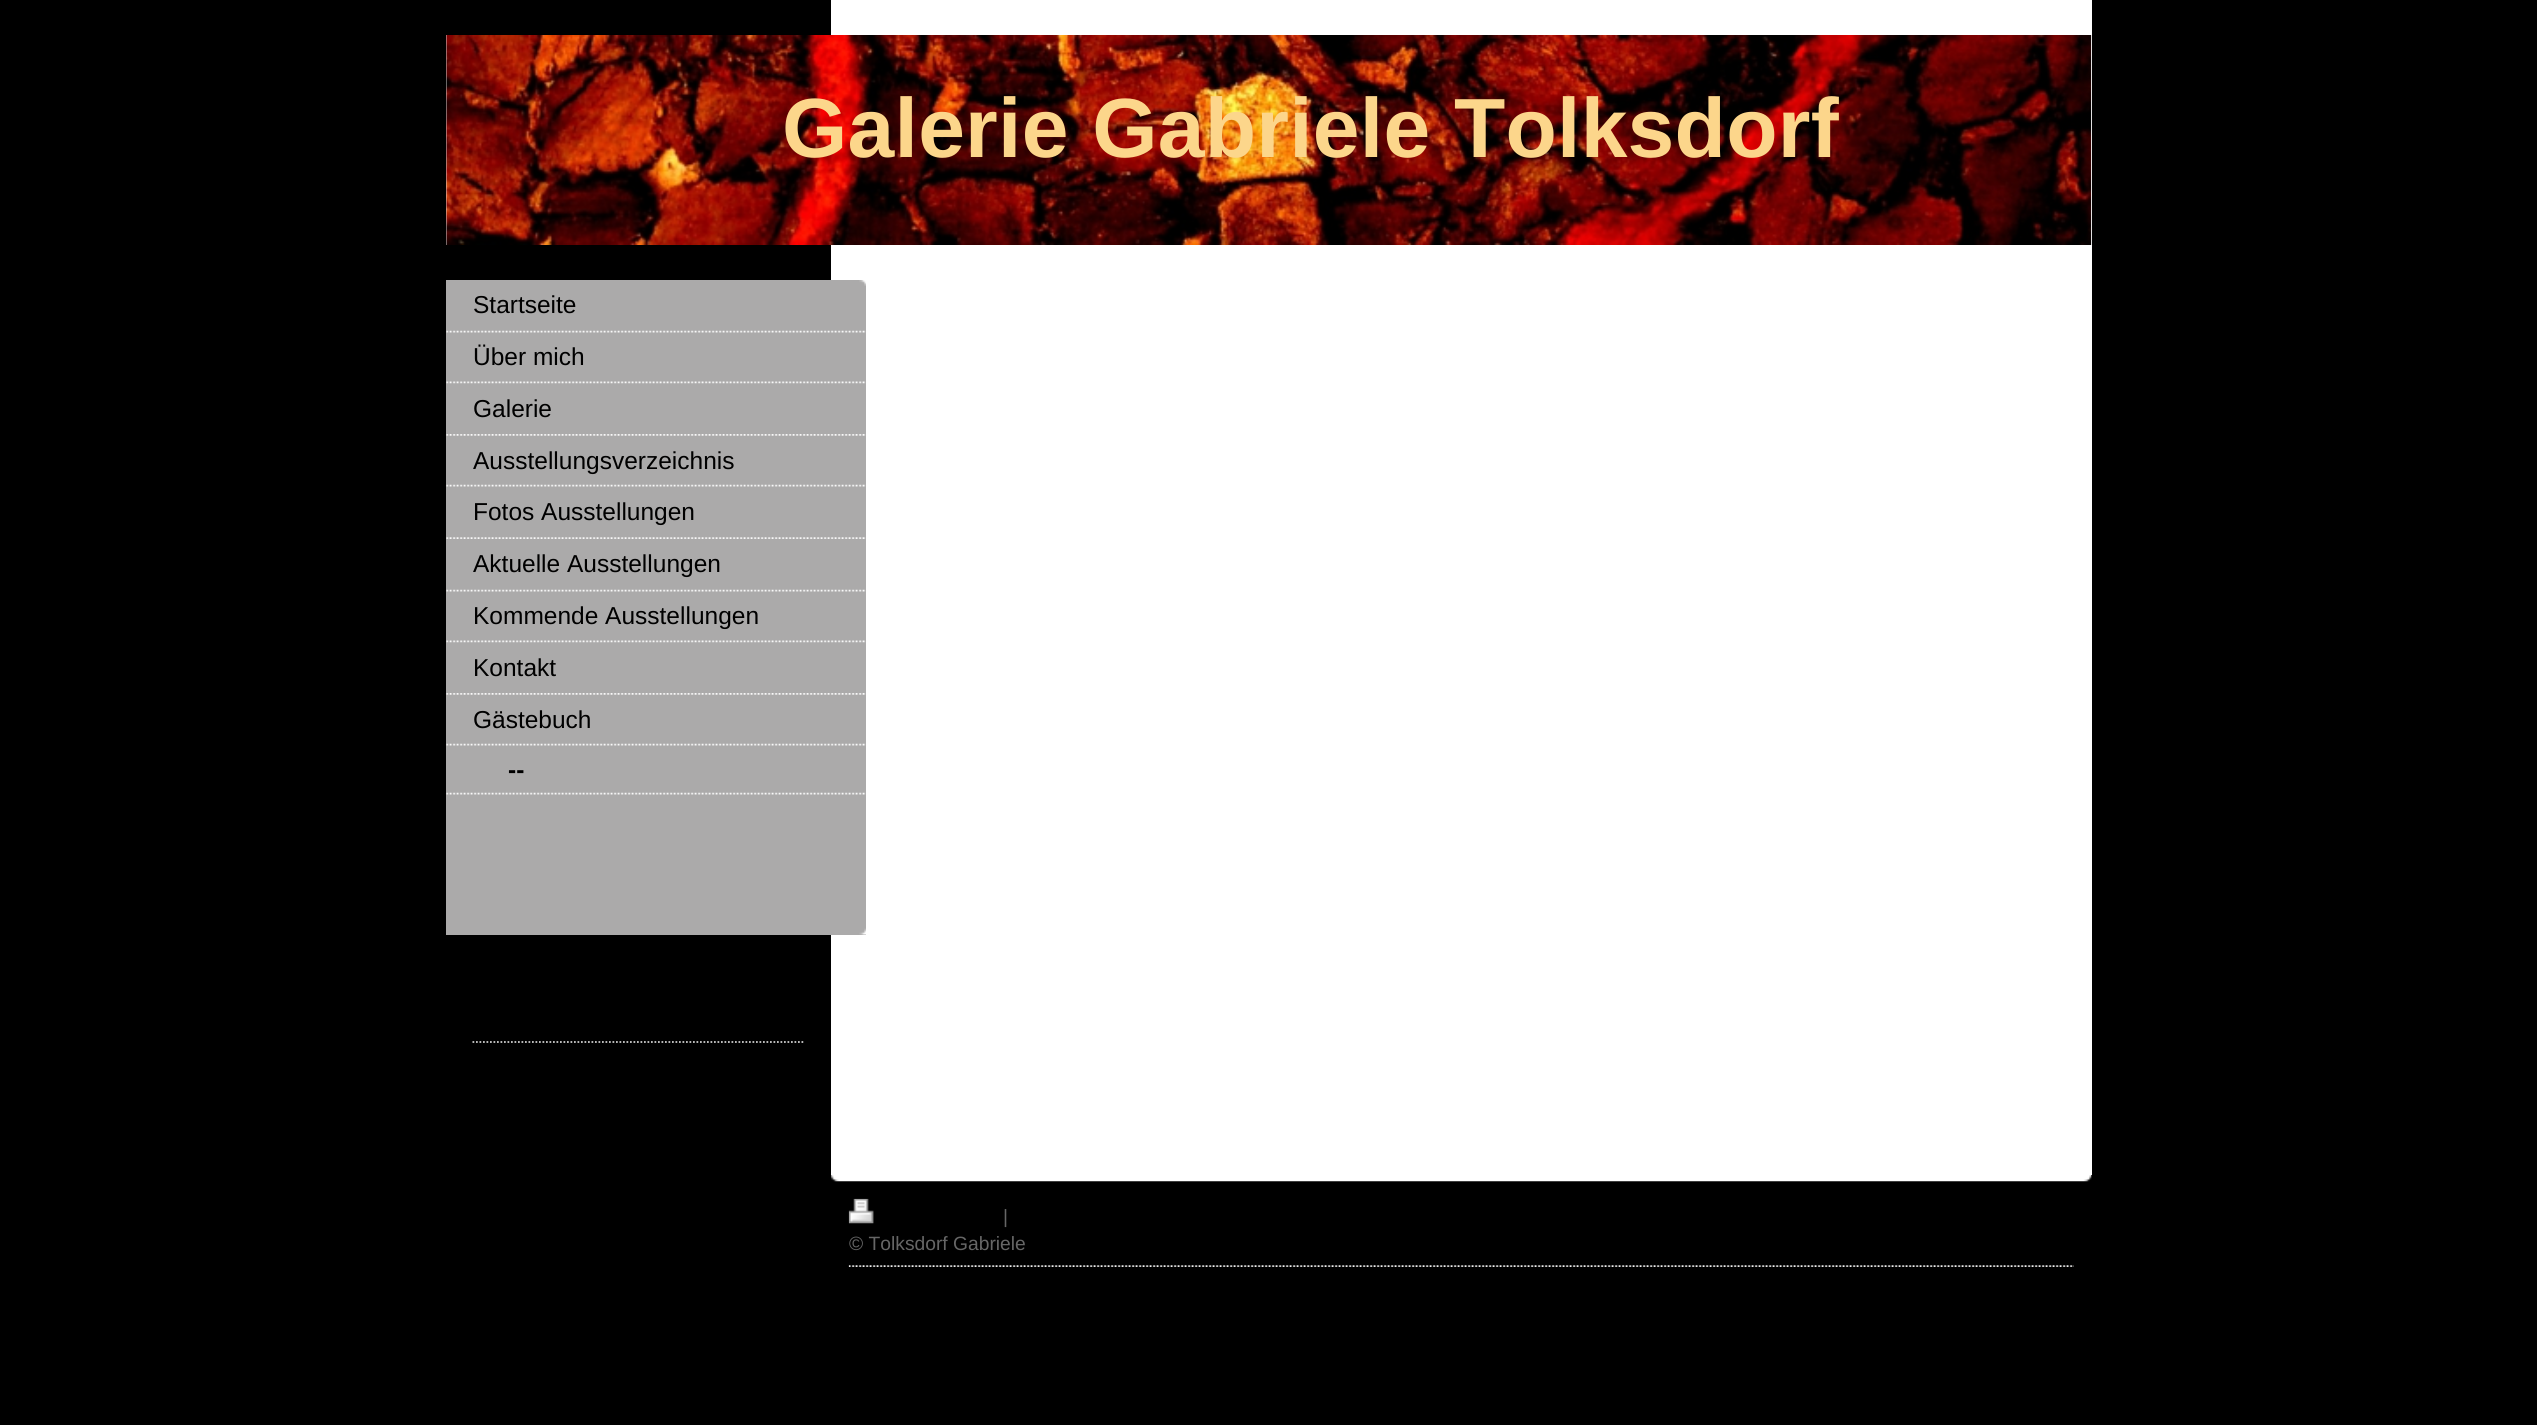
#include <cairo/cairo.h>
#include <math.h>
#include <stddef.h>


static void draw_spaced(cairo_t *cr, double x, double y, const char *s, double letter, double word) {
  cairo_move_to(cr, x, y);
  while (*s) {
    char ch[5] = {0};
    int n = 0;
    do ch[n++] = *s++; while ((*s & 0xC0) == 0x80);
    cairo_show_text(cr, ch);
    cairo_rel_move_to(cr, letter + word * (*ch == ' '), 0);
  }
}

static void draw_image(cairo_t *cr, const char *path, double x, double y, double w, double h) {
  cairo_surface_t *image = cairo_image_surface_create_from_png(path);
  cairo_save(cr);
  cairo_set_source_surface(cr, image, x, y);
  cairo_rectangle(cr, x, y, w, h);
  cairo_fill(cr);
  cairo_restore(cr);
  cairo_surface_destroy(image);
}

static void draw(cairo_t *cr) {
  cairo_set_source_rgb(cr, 0, 0, 0);
  cairo_paint(cr);
  cairo_set_source_rgb(cr, 1, 1, 1);
  cairo_rectangle(cr, 831, 0, 1261, 1175);
  cairo_fill(cr);
  cairo_set_source_rgb(cr, 238 / 255.0, 238 / 255.0, 238 / 255.0);
  cairo_rectangle(cr, 446, 35, 1, 210);
  cairo_fill(cr);
  draw_image(cr, "images/2.png", 2091, 35, 1, 210);
  draw_image(cr, "images/1.png", 446, 35, 1646, 210);
  cairo_set_source_rgb(cr, 171 / 255.0, 170 / 255.0, 170 / 255.0);
  cairo_rectangle(cr, 446, 280, 420, 655);
  cairo_fill(cr);
  draw_image(cr, "images/3.png", 859, 928, 7, 7);
  draw_image(cr, "images/4.png", 859, 280, 7, 6);
  draw_image(cr, "images/5.png", 446, 330, 420, 3);
  draw_image(cr, "images/6.png", 446, 381, 420, 3);
  draw_image(cr, "images/7.png", 446, 434, 420, 2);
  draw_image(cr, "images/5.png", 446, 484, 420, 3);
  draw_image(cr, "images/8.png", 446, 537, 420, 2);
  draw_image(cr, "images/5.png", 446, 589, 420, 3);
  draw_image(cr, "images/6.png", 446, 640, 420, 3);
  draw_image(cr, "images/7.png", 446, 693, 420, 2);
  draw_image(cr, "images/5.png", 446, 743, 420, 3);
  draw_image(cr, "images/5.png", 446, 792, 420, 3);
  cairo_new_path(cr);
  cairo_move_to(cr, 472.5, 1042);
  cairo_line_to(cr, 805, 1042);
  cairo_set_source_rgb(cr, 204 / 255.0, 204 / 255.0, 204 / 255.0);
  cairo_set_line_width(cr, 1.8);
  cairo_set_dash(cr, (double[]){1.75, 1.75}, 2, 0);
  cairo_stroke(cr);
  draw_image(cr, "images/9.png", 831, 1175, 1261, 7);
  draw_image(cr, "images/10.png", 848, 1265, 1226, 2);
  draw_image(cr, "images/11.png", 848, 1198, 26, 26);
  cairo_select_font_face(cr, "Liberation Sans", CAIRO_FONT_SLANT_NORMAL, CAIRO_FONT_WEIGHT_BOLD);
  cairo_set_font_size(cr, 84);
  cairo_set_source_rgb(cr, 252 / 255.0, 214 / 255.0, 139 / 255.0);
  draw_spaced(cr, 782, 157, "Galerie Gabriele Tolksdorf", 0.25, 0);
  cairo_select_font_face(cr, "Liberation Sans", CAIRO_FONT_SLANT_NORMAL, CAIRO_FONT_WEIGHT_NORMAL);
  cairo_set_font_size(cr, 24.5);
  cairo_set_source_rgb(cr, 0, 0, 0);
  cairo_move_to(cr, 473, 313);
  cairo_show_text(cr, "Startseite");
  cairo_move_to(cr, 473, 365);
  cairo_show_text(cr, "Über mich");
  cairo_move_to(cr, 473, 417);
  cairo_show_text(cr, "Galerie");
  cairo_move_to(cr, 473, 469);
  cairo_show_text(cr, "Ausstellungsverzeichnis");
  cairo_move_to(cr, 473, 520);
  cairo_show_text(cr, "Fotos Ausstellungen");
  cairo_move_to(cr, 473, 572);
  cairo_show_text(cr, "Aktuelle Ausstellungen");
  cairo_move_to(cr, 473, 624);
  cairo_show_text(cr, "Kommende Ausstellungen");
  cairo_move_to(cr, 473, 676);
  cairo_show_text(cr, "Kontakt");
  cairo_move_to(cr, 473, 728);
  cairo_show_text(cr, "Gästebuch");
  cairo_select_font_face(cr, "Liberation Sans", CAIRO_FONT_SLANT_NORMAL, CAIRO_FONT_WEIGHT_BOLD);
  cairo_move_to(cr, 508, 778);
  cairo_show_text(cr, "--");
  cairo_select_font_face(cr, "Liberation Sans", CAIRO_FONT_SLANT_NORMAL, CAIRO_FONT_WEIGHT_NORMAL);
  cairo_set_font_size(cr, 19.25);
  cairo_set_source_rgb(cr, 102 / 255.0, 102 / 255.0, 102 / 255.0);
  cairo_move_to(cr, 1003, 1223);
  cairo_show_text(cr, "|");
  cairo_move_to(cr, 849, 1250);
  cairo_show_text(cr, "© Tolksdorf Gabriele");
}

int main(void) {
  cairo_surface_t *surface = cairo_image_surface_create(CAIRO_FORMAT_RGB24, 2537, 1425);
  cairo_t *cr = cairo_create(surface);
  cairo_font_options_t *options = cairo_font_options_create();
  cairo_font_options_set_hint_metrics(options, CAIRO_HINT_METRICS_OFF);
  cairo_font_options_set_hint_style(options, CAIRO_HINT_STYLE_NONE);
  cairo_set_font_options(cr, options);
  cairo_set_miter_limit(cr, 4);
  draw(cr);
  cairo_surface_write_to_png(surface, "out.png");
  cairo_font_options_destroy(options);
  cairo_destroy(cr);
  cairo_surface_destroy(surface);
  return 0;
}
